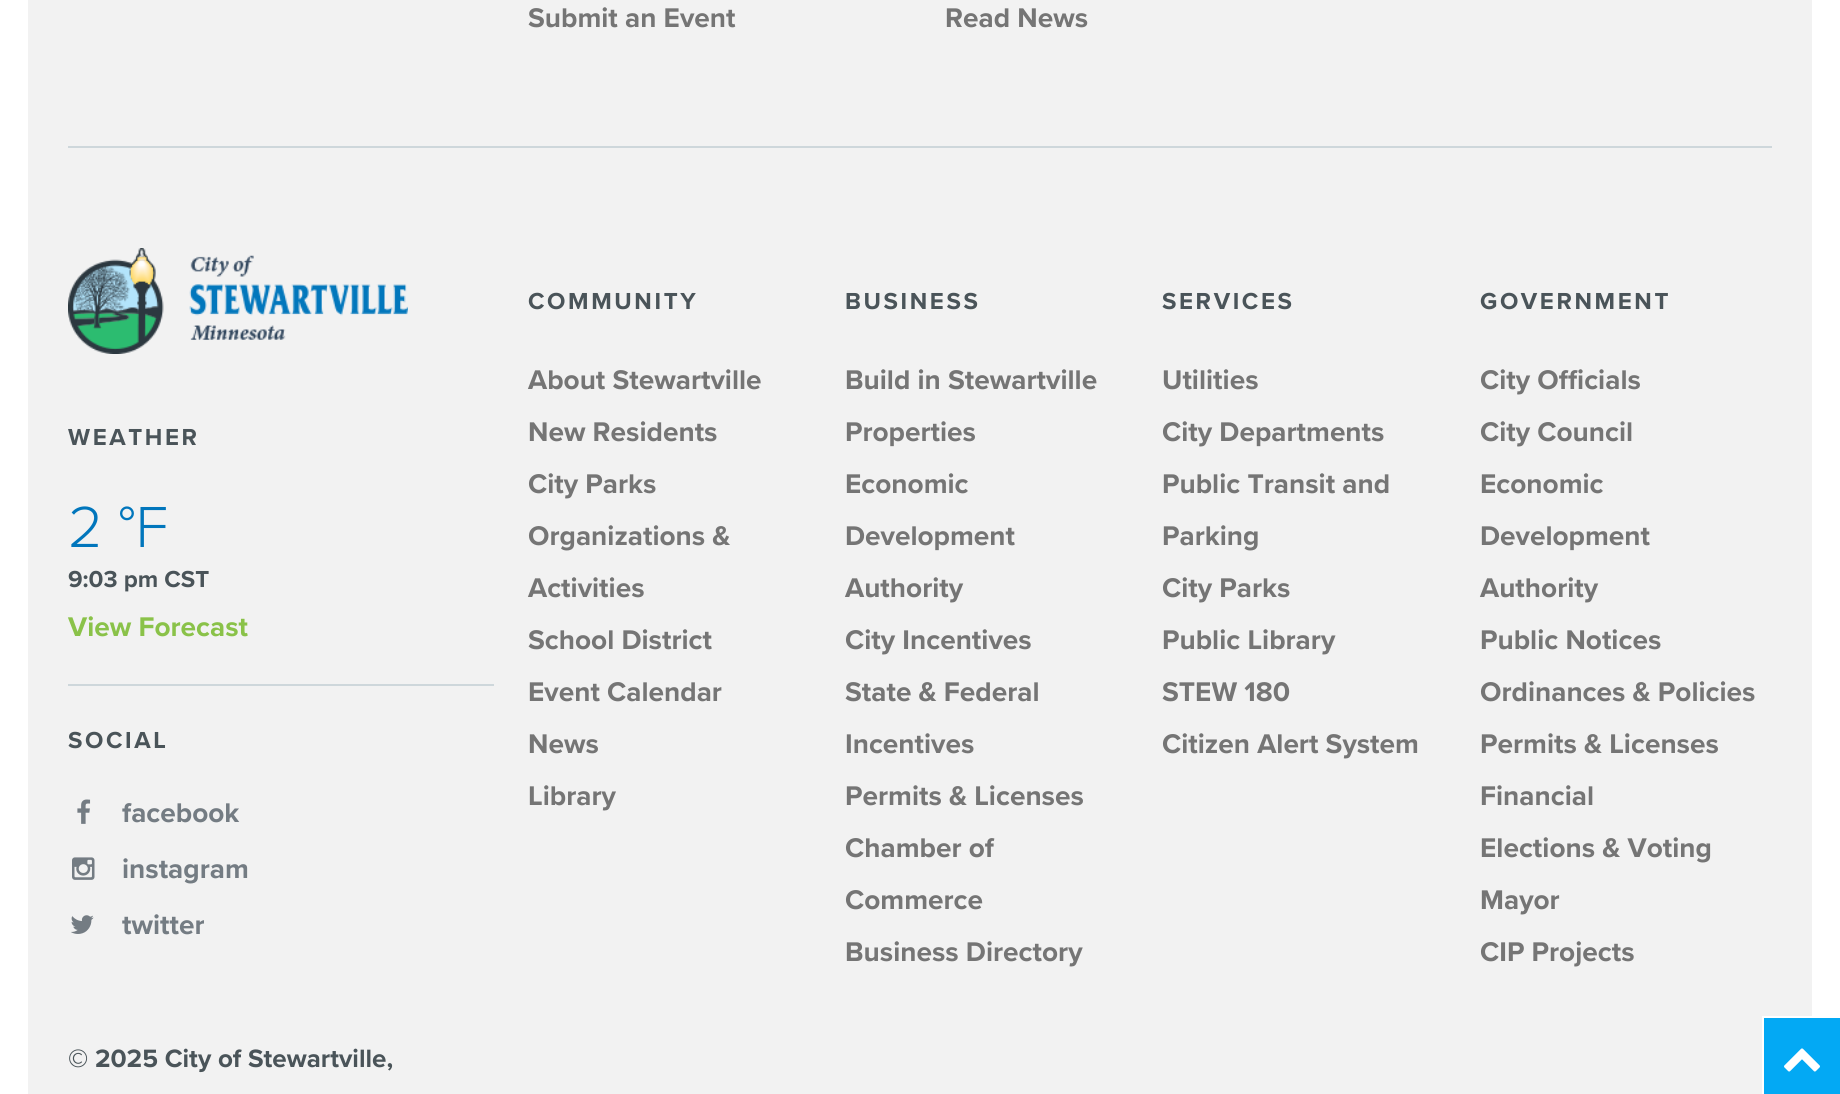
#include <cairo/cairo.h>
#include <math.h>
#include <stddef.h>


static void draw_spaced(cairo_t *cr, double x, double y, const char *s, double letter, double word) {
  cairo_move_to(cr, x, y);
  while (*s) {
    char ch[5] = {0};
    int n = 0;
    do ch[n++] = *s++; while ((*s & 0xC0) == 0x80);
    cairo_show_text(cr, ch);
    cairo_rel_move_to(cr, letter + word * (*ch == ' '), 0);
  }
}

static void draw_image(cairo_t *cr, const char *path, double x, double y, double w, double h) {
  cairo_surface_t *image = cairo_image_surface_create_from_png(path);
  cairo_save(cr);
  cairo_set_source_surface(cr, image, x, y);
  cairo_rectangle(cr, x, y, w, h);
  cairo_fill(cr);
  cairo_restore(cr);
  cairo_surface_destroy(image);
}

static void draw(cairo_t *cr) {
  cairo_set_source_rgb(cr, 1, 1, 1);
  cairo_paint(cr);
  cairo_set_source_rgb(cr, 242 / 255.0, 242 / 255.0, 242 / 255.0);
  cairo_rectangle(cr, 28, 0, 1784, 1094);
  cairo_fill(cr);
  cairo_set_source_rgb(cr, 206 / 255.0, 215 / 255.0, 219 / 255.0);
  cairo_rectangle(cr, 68, 146, 1704, 2);
  cairo_fill(cr);
  draw_image(cr, "images/1.png", 68, 248, 340, 106);
  cairo_rectangle(cr, 68, 684, 426, 2);
  cairo_fill(cr);
  draw_image(cr, "images/2.png", 77, 799, 14, 25);
  draw_image(cr, "images/3.png", 72, 857, 23, 23);
  draw_image(cr, "images/4.png", 71, 915, 23, 19);
  cairo_set_source_rgb(cr, 3 / 255.0, 169 / 255.0, 244 / 255.0);
  cairo_rectangle(cr, 1763, 1017, 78, 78);
  cairo_fill_preserve(cr);
  cairo_set_source_rgb(cr, 1, 1, 1);
  cairo_stroke(cr);
  draw_image(cr, "images/5.png", 1784, 1048, 36, 24);
  cairo_select_font_face(cr, "Proxima Nova", CAIRO_FONT_SLANT_NORMAL, CAIRO_FONT_WEIGHT_BOLD);
  cairo_set_font_size(cr, 28);
  cairo_set_source_rgb(cr, 117 / 255.0, 117 / 255.0, 117 / 255.0);
  cairo_move_to(cr, 528, 27);
  cairo_show_text(cr, "Submit an Event");
  cairo_move_to(cr, 945, 27);
  cairo_show_text(cr, "Read News");
  cairo_set_font_size(cr, 24);
  cairo_set_source_rgb(cr, 74 / 255.0, 84 / 255.0, 89 / 255.0);
  draw_spaced(cr, 68, 445, "WEATHER", 2.6, 0);
  cairo_select_font_face(cr, "Proxima Nova Light", CAIRO_FONT_SLANT_NORMAL, CAIRO_FONT_WEIGHT_NORMAL);
  cairo_set_font_size(cr, 60);
  cairo_set_source_rgb(cr, 1 / 255.0, 118 / 255.0, 188 / 255.0);
  cairo_move_to(cr, 68, 547);
  cairo_show_text(cr, "2 °F");
  cairo_select_font_face(cr, "Proxima Nova", CAIRO_FONT_SLANT_NORMAL, CAIRO_FONT_WEIGHT_BOLD);
  cairo_set_font_size(cr, 24);
  cairo_set_source_rgb(cr, 74 / 255.0, 84 / 255.0, 89 / 255.0);
  cairo_move_to(cr, 68, 587);
  cairo_show_text(cr, "9:03 pm CST");
  cairo_set_font_size(cr, 28);
  cairo_set_source_rgb(cr, 138 / 255.0, 194 / 255.0, 73 / 255.0);
  cairo_move_to(cr, 68, 636);
  cairo_show_text(cr, "View Forecast");
  cairo_set_font_size(cr, 24);
  cairo_set_source_rgb(cr, 74 / 255.0, 84 / 255.0, 89 / 255.0);
  draw_spaced(cr, 68, 748, "SOCIAL", 2.6, 0);
  cairo_set_font_size(cr, 28);
  cairo_set_source_rgb(cr, 116 / 255.0, 124 / 255.0, 131 / 255.0);
  cairo_move_to(cr, 122, 822);
  cairo_show_text(cr, "facebook");
  cairo_move_to(cr, 122, 878);
  cairo_show_text(cr, "instagram");
  cairo_move_to(cr, 122, 934);
  cairo_show_text(cr, "twitter");
  cairo_set_font_size(cr, 26);
  cairo_set_source_rgb(cr, 74 / 255.0, 84 / 255.0, 89 / 255.0);
  cairo_move_to(cr, 68, 1067);
  cairo_show_text(cr, "© 2025 City of Stewartville,");
  cairo_set_font_size(cr, 24);
  draw_spaced(cr, 528, 309, "COMMUNITY", 2.6, 0);
  cairo_set_font_size(cr, 28);
  cairo_set_source_rgb(cr, 117 / 255.0, 117 / 255.0, 117 / 255.0);
  cairo_move_to(cr, 528, 389);
  cairo_show_text(cr, "About Stewartville");
  cairo_move_to(cr, 528, 441);
  cairo_show_text(cr, "New Residents");
  cairo_move_to(cr, 528, 493);
  cairo_show_text(cr, "City Parks");
  cairo_move_to(cr, 528, 545);
  cairo_show_text(cr, "Organizations &");
  cairo_move_to(cr, 528, 597);
  cairo_show_text(cr, "Activities");
  cairo_move_to(cr, 528, 649);
  cairo_show_text(cr, "School District");
  cairo_move_to(cr, 528, 701);
  cairo_show_text(cr, "Event Calendar");
  cairo_move_to(cr, 528, 753);
  cairo_show_text(cr, "News");
  cairo_move_to(cr, 528, 805);
  cairo_show_text(cr, "Library");
  cairo_set_font_size(cr, 24);
  cairo_set_source_rgb(cr, 74 / 255.0, 84 / 255.0, 89 / 255.0);
  draw_spaced(cr, 845, 309, "BUSINESS", 2.6, 0);
  cairo_set_font_size(cr, 28);
  cairo_set_source_rgb(cr, 117 / 255.0, 117 / 255.0, 117 / 255.0);
  cairo_move_to(cr, 845, 389);
  cairo_show_text(cr, "Build in Stewartville");
  cairo_move_to(cr, 845, 441);
  cairo_show_text(cr, "Properties");
  cairo_move_to(cr, 845, 493);
  cairo_show_text(cr, "Economic");
  cairo_move_to(cr, 845, 545);
  cairo_show_text(cr, "Development");
  cairo_move_to(cr, 845, 597);
  cairo_show_text(cr, "Authority");
  cairo_move_to(cr, 845, 649);
  cairo_show_text(cr, "City Incentives");
  cairo_move_to(cr, 845, 701);
  cairo_show_text(cr, "State & Federal");
  cairo_move_to(cr, 845, 753);
  cairo_show_text(cr, "Incentives");
  cairo_move_to(cr, 845, 805);
  cairo_show_text(cr, "Permits & Licenses");
  cairo_move_to(cr, 845, 857);
  cairo_show_text(cr, "Chamber of");
  cairo_move_to(cr, 845, 909);
  cairo_show_text(cr, "Commerce");
  cairo_move_to(cr, 845, 961);
  cairo_show_text(cr, "Business Directory");
  cairo_set_font_size(cr, 24);
  cairo_set_source_rgb(cr, 74 / 255.0, 84 / 255.0, 89 / 255.0);
  draw_spaced(cr, 1162, 309, "SERVICES", 2.6, 0);
  cairo_set_font_size(cr, 28);
  cairo_set_source_rgb(cr, 117 / 255.0, 117 / 255.0, 117 / 255.0);
  cairo_move_to(cr, 1162, 389);
  cairo_show_text(cr, "Utilities");
  cairo_move_to(cr, 1162, 441);
  cairo_show_text(cr, "City Departments");
  cairo_move_to(cr, 1162, 493);
  cairo_show_text(cr, "Public Transit and");
  cairo_move_to(cr, 1162, 545);
  cairo_show_text(cr, "Parking");
  cairo_move_to(cr, 1162, 597);
  cairo_show_text(cr, "City Parks");
  cairo_move_to(cr, 1162, 649);
  cairo_show_text(cr, "Public Library");
  cairo_move_to(cr, 1162, 701);
  cairo_show_text(cr, "STEW 180");
  cairo_move_to(cr, 1162, 753);
  cairo_show_text(cr, "Citizen Alert System");
  cairo_set_font_size(cr, 24);
  cairo_set_source_rgb(cr, 74 / 255.0, 84 / 255.0, 89 / 255.0);
  draw_spaced(cr, 1480, 309, "GOVERNMENT", 2.6, 0);
  cairo_set_font_size(cr, 28);
  cairo_set_source_rgb(cr, 117 / 255.0, 117 / 255.0, 117 / 255.0);
  cairo_move_to(cr, 1480, 389);
  cairo_show_text(cr, "City Officials");
  cairo_move_to(cr, 1480, 441);
  cairo_show_text(cr, "City Council");
  cairo_move_to(cr, 1480, 493);
  cairo_show_text(cr, "Economic");
  cairo_move_to(cr, 1480, 545);
  cairo_show_text(cr, "Development");
  cairo_move_to(cr, 1480, 597);
  cairo_show_text(cr, "Authority");
  cairo_move_to(cr, 1480, 649);
  cairo_show_text(cr, "Public Notices");
  cairo_move_to(cr, 1480, 701);
  cairo_show_text(cr, "Ordinances & Policies");
  cairo_move_to(cr, 1480, 753);
  cairo_show_text(cr, "Permits & Licenses");
  cairo_move_to(cr, 1480, 805);
  cairo_show_text(cr, "Financial");
  cairo_move_to(cr, 1480, 857);
  cairo_show_text(cr, "Elections & Voting");
  cairo_move_to(cr, 1480, 909);
  cairo_show_text(cr, "Mayor");
  cairo_move_to(cr, 1480, 961);
  cairo_show_text(cr, "CIP Projects");
}

int main(void) {
  cairo_surface_t *surface = cairo_image_surface_create(CAIRO_FORMAT_RGB24, 1840, 1094);
  cairo_t *cr = cairo_create(surface);
  cairo_font_options_t *options = cairo_font_options_create();
  cairo_font_options_set_hint_metrics(options, CAIRO_HINT_METRICS_OFF);
  cairo_font_options_set_hint_style(options, CAIRO_HINT_STYLE_NONE);
  cairo_set_font_options(cr, options);
  cairo_set_miter_limit(cr, 4);
  draw(cr);
  cairo_surface_write_to_png(surface, "out.png");
  cairo_font_options_destroy(options);
  cairo_destroy(cr);
  cairo_surface_destroy(surface);
  return 0;
}
